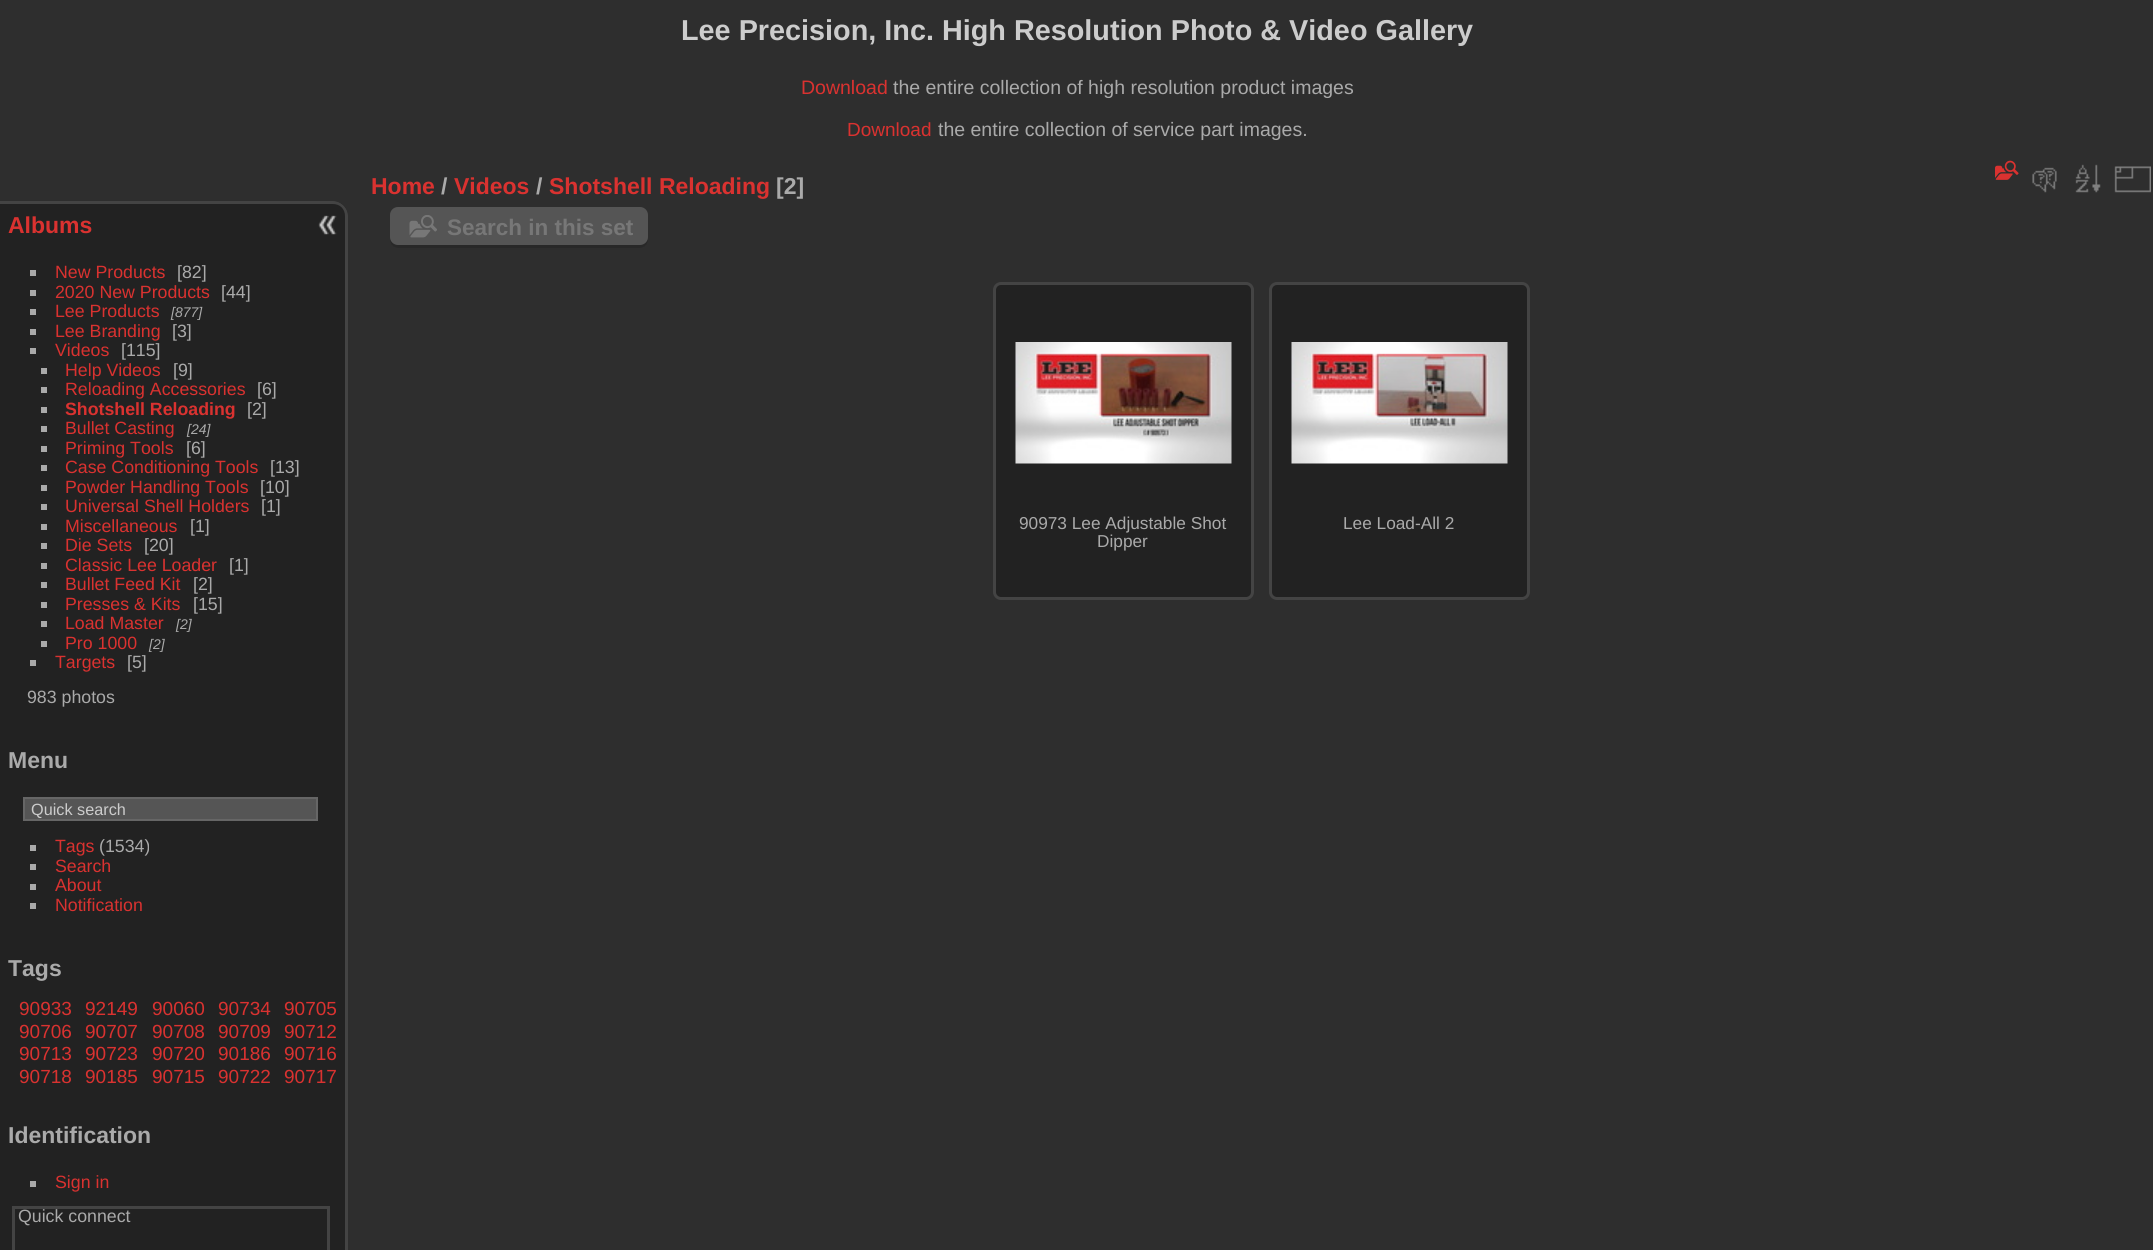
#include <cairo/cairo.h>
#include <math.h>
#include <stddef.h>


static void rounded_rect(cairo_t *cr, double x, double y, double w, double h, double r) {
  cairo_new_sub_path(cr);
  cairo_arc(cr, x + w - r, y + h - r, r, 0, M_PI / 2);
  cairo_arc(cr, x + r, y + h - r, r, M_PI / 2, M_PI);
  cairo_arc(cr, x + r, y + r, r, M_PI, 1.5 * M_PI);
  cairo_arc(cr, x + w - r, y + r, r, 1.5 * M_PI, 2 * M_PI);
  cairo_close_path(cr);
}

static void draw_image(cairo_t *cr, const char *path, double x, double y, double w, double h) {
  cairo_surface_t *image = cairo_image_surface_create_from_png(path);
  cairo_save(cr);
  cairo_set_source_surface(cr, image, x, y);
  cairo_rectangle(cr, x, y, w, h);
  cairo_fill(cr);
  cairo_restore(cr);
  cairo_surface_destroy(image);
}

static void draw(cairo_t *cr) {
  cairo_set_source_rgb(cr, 46 / 255.0, 46 / 255.0, 46 / 255.0);
  cairo_paint(cr);
  cairo_set_source_rgb(cr, 34 / 255.0, 34 / 255.0, 34 / 255.0);
  cairo_new_path(cr);
  cairo_move_to(cr, 0, 201);
  cairo_line_to(cr, 333, 201);
  cairo_curve_to(cr, 341.5, 201, 348, 207.5, 348, 216);
  cairo_line_to(cr, 348, 1250);
  cairo_curve_to(cr, 348, 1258.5, 341.5, 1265, 333, 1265);
  cairo_line_to(cr, 0, 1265);
  cairo_close_path(cr);
  cairo_fill(cr);
  cairo_set_source_rgb(cr, 68 / 255.0, 68 / 255.0, 68 / 255.0);
  cairo_set_fill_rule(cr, CAIRO_FILL_RULE_EVEN_ODD);
  cairo_new_path(cr);
  cairo_move_to(cr, 0, 201);
  cairo_line_to(cr, 333, 201);
  cairo_curve_to(cr, 341, 201, 348, 208, 348, 216);
  cairo_line_to(cr, 348, 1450);
  cairo_curve_to(cr, 348, 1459, 341, 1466, 333, 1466);
  cairo_line_to(cr, 0, 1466);
  cairo_close_path(cr);
  cairo_move_to(cr, 0, 204);
  cairo_line_to(cr, 333, 204);
  cairo_curve_to(cr, 340, 204, 345, 209, 345, 216);
  cairo_line_to(cr, 345, 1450);
  cairo_curve_to(cr, 345, 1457, 340, 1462, 333, 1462);
  cairo_line_to(cr, 0, 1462);
  cairo_close_path(cr);
  cairo_fill(cr);
  draw_image(cr, "images/1.png", 318, 215, 19, 20);
  draw_image(cr, "images/2.png", 1995, 160, 24, 20);
  draw_image(cr, "images/3.png", 2032, 167, 25, 26);
  draw_image(cr, "images/4.png", 2075, 164, 26, 29);
  draw_image(cr, "images/5.png", 2114, 166, 37, 27);
  cairo_set_source_rgb(cr, 40 / 255.0, 40 / 255.0, 40 / 255.0);
  cairo_set_fill_rule(cr, CAIRO_FILL_RULE_WINDING);
  cairo_new_path(cr);
  cairo_move_to(cr, 390, 237);
  cairo_line_to(cr, 390, 240);
  cairo_curve_to(cr, 390, 244, 394, 248, 398, 248);
  cairo_line_to(cr, 640, 248);
  cairo_curve_to(cr, 644, 248, 648, 244, 648, 240);
  cairo_line_to(cr, 648, 237);
  cairo_curve_to(cr, 648, 241, 645, 244, 640, 244);
  cairo_line_to(cr, 398, 244);
  cairo_curve_to(cr, 393, 244, 390, 241, 390, 237);
  cairo_close_path(cr);
  cairo_fill(cr);
  cairo_set_source_rgb(cr, 85 / 255.0, 85 / 255.0, 85 / 255.0);
  rounded_rect(cr, 390, 207, 258, 38, 8);
  cairo_fill(cr);
  draw_image(cr, "images/6.png", 409, 215, 28, 23);
  cairo_set_source_rgb(cr, 34 / 255.0, 34 / 255.0, 34 / 255.0);
  rounded_rect(cr, 994.5, 283.5, 258, 315, 6.5);
  cairo_fill_preserve(cr);
  cairo_set_source_rgb(cr, 68 / 255.0, 68 / 255.0, 68 / 255.0);
  cairo_set_line_width(cr, 3);
  cairo_stroke(cr);
  draw_image(cr, "images/7.png", 1015, 342, 217, 122);
  cairo_set_source_rgb(cr, 34 / 255.0, 34 / 255.0, 34 / 255.0);
  rounded_rect(cr, 1270.5, 283.5, 258, 315, 6.5);
  cairo_fill_preserve(cr);
  cairo_set_source_rgb(cr, 68 / 255.0, 68 / 255.0, 68 / 255.0);
  cairo_stroke(cr);
  draw_image(cr, "images/8.png", 1291, 342, 217, 122);
  cairo_set_source_rgb(cr, 170 / 255.0, 170 / 255.0, 170 / 255.0);
  cairo_rectangle(cr, 30, 270, 6, 6);
  cairo_fill(cr);
  cairo_rectangle(cr, 30, 290, 6, 6);
  cairo_fill(cr);
  cairo_rectangle(cr, 30, 309, 6, 6);
  cairo_fill(cr);
  cairo_rectangle(cr, 30, 329, 6, 6);
  cairo_fill(cr);
  cairo_rectangle(cr, 30, 348, 6, 6);
  cairo_fill(cr);
  cairo_rectangle(cr, 41, 368, 6, 6);
  cairo_fill(cr);
  cairo_rectangle(cr, 41, 387, 6, 6);
  cairo_fill(cr);
  cairo_rectangle(cr, 41, 407, 6, 6);
  cairo_fill(cr);
  cairo_rectangle(cr, 41, 426, 6, 6);
  cairo_fill(cr);
  cairo_rectangle(cr, 41, 446, 6, 6);
  cairo_fill(cr);
  cairo_rectangle(cr, 41, 465, 6, 6);
  cairo_fill(cr);
  cairo_rectangle(cr, 41, 485, 6, 6);
  cairo_fill(cr);
  cairo_rectangle(cr, 41, 504, 6, 6);
  cairo_fill(cr);
  cairo_rectangle(cr, 41, 524, 6, 6);
  cairo_fill(cr);
  cairo_rectangle(cr, 41, 543, 6, 6);
  cairo_fill(cr);
  cairo_rectangle(cr, 41, 563, 6, 6);
  cairo_fill(cr);
  cairo_rectangle(cr, 41, 582, 6, 6);
  cairo_fill(cr);
  cairo_rectangle(cr, 41, 602, 6, 6);
  cairo_fill(cr);
  cairo_rectangle(cr, 41, 621, 6, 6);
  cairo_fill(cr);
  cairo_rectangle(cr, 41, 641, 6, 6);
  cairo_fill(cr);
  cairo_rectangle(cr, 30, 660, 6, 6);
  cairo_fill(cr);
  cairo_set_source_rgb(cr, 85 / 255.0, 85 / 255.0, 85 / 255.0);
  cairo_rectangle(cr, 24, 798, 293, 22);
  cairo_fill_preserve(cr);
  cairo_set_source_rgb(cr, 102 / 255.0, 102 / 255.0, 102 / 255.0);
  cairo_set_line_width(cr, 2);
  cairo_stroke(cr);
  cairo_set_source_rgb(cr, 170 / 255.0, 170 / 255.0, 170 / 255.0);
  cairo_rectangle(cr, 30, 845, 6, 6);
  cairo_fill(cr);
  cairo_rectangle(cr, 30, 864, 6, 6);
  cairo_fill(cr);
  cairo_rectangle(cr, 30, 884, 6, 6);
  cairo_fill(cr);
  cairo_rectangle(cr, 30, 903, 6, 6);
  cairo_fill(cr);
  cairo_rectangle(cr, 30, 1181, 6, 6);
  cairo_fill(cr);
  cairo_rectangle(cr, 13.5, 1207.5, 315, 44);
  cairo_set_source_rgb(cr, 68 / 255.0, 68 / 255.0, 68 / 255.0);
  cairo_set_line_width(cr, 3);
  cairo_stroke(cr);
  cairo_select_font_face(cr, "Liberation Sans", CAIRO_FONT_SLANT_NORMAL, CAIRO_FONT_WEIGHT_BOLD);
  cairo_set_font_size(cr, 28.8);
  cairo_set_source_rgb(cr, 204 / 255.0, 204 / 255.0, 204 / 255.0);
  cairo_move_to(cr, 681, 40);
  cairo_show_text(cr, "Lee Precision, Inc. High Resolution Photo & Video Gallery");
  cairo_select_font_face(cr, "Liberation Sans", CAIRO_FONT_SLANT_NORMAL, CAIRO_FONT_WEIGHT_NORMAL);
  cairo_set_font_size(cr, 19.5);
  cairo_set_source_rgb(cr, 218 / 255.0, 50 / 255.0, 48 / 255.0);
  cairo_move_to(cr, 801, 94);
  cairo_show_text(cr, "Download");
  cairo_set_source_rgb(cr, 170 / 255.0, 170 / 255.0, 170 / 255.0);
  cairo_move_to(cr, 893, 94);
  cairo_show_text(cr, "the entire collection of high resolution product images");
  cairo_set_font_size(cr, 19);
  cairo_set_source_rgb(cr, 218 / 255.0, 50 / 255.0, 48 / 255.0);
  cairo_move_to(cr, 847, 136);
  cairo_show_text(cr, "Download");
  cairo_set_font_size(cr, 19.5);
  cairo_set_source_rgb(cr, 170 / 255.0, 170 / 255.0, 170 / 255.0);
  cairo_move_to(cr, 938, 136);
  cairo_show_text(cr, "the entire collection of service part images.");
  cairo_select_font_face(cr, "Liberation Sans", CAIRO_FONT_SLANT_NORMAL, CAIRO_FONT_WEIGHT_BOLD);
  cairo_set_font_size(cr, 23);
  cairo_set_source_rgb(cr, 218 / 255.0, 50 / 255.0, 48 / 255.0);
  cairo_move_to(cr, 371, 194);
  cairo_show_text(cr, "Home");
  cairo_set_source_rgb(cr, 170 / 255.0, 170 / 255.0, 170 / 255.0);
  cairo_move_to(cr, 441, 194);
  cairo_show_text(cr, "/");
  cairo_set_source_rgb(cr, 218 / 255.0, 50 / 255.0, 48 / 255.0);
  cairo_move_to(cr, 454, 194);
  cairo_show_text(cr, "Videos");
  cairo_set_source_rgb(cr, 170 / 255.0, 170 / 255.0, 170 / 255.0);
  cairo_move_to(cr, 536, 194);
  cairo_show_text(cr, "/");
  cairo_set_source_rgb(cr, 218 / 255.0, 50 / 255.0, 48 / 255.0);
  cairo_move_to(cr, 549, 194);
  cairo_show_text(cr, "Shotshell Reloading");
  cairo_set_source_rgb(cr, 170 / 255.0, 170 / 255.0, 170 / 255.0);
  cairo_move_to(cr, 776, 194);
  cairo_show_text(cr, "[2]");
  cairo_set_font_size(cr, 22.5);
  cairo_set_source_rgb(cr, 119 / 255.0, 119 / 255.0, 119 / 255.0);
  cairo_move_to(cr, 447, 235);
  cairo_show_text(cr, "Search in this set");
  cairo_select_font_face(cr, "Liberation Sans", CAIRO_FONT_SLANT_NORMAL, CAIRO_FONT_WEIGHT_NORMAL);
  cairo_set_font_size(cr, 17.25);
  cairo_set_source_rgb(cr, 170 / 255.0, 170 / 255.0, 170 / 255.0);
  cairo_move_to(cr, 1019, 529);
  cairo_show_text(cr, "90973 Lee Adjustable Shot");
  cairo_move_to(cr, 1097, 547);
  cairo_show_text(cr, "Dipper");
  cairo_move_to(cr, 1343, 529);
  cairo_show_text(cr, "Lee Load-All 2");
  cairo_select_font_face(cr, "Liberation Sans", CAIRO_FONT_SLANT_NORMAL, CAIRO_FONT_WEIGHT_BOLD);
  cairo_set_font_size(cr, 23);
  cairo_set_source_rgb(cr, 218 / 255.0, 50 / 255.0, 48 / 255.0);
  cairo_move_to(cr, 8, 233);
  cairo_show_text(cr, "Albums");
  cairo_select_font_face(cr, "Liberation Sans", CAIRO_FONT_SLANT_NORMAL, CAIRO_FONT_WEIGHT_NORMAL);
  cairo_set_font_size(cr, 17.75);
  cairo_move_to(cr, 55, 278);
  cairo_show_text(cr, "New Products");
  cairo_set_source_rgb(cr, 170 / 255.0, 170 / 255.0, 170 / 255.0);
  cairo_move_to(cr, 177, 278);
  cairo_show_text(cr, "[82]");
  cairo_set_source_rgb(cr, 218 / 255.0, 50 / 255.0, 48 / 255.0);
  cairo_move_to(cr, 55, 298);
  cairo_show_text(cr, "2020 New Products");
  cairo_set_source_rgb(cr, 170 / 255.0, 170 / 255.0, 170 / 255.0);
  cairo_move_to(cr, 221, 298);
  cairo_show_text(cr, "[44]");
  cairo_set_source_rgb(cr, 218 / 255.0, 50 / 255.0, 48 / 255.0);
  cairo_move_to(cr, 55, 317);
  cairo_show_text(cr, "Lee Products");
  cairo_select_font_face(cr, "Liberation Sans", CAIRO_FONT_SLANT_ITALIC, CAIRO_FONT_WEIGHT_NORMAL);
  cairo_set_font_size(cr, 14);
  cairo_set_source_rgb(cr, 170 / 255.0, 170 / 255.0, 170 / 255.0);
  cairo_move_to(cr, 171, 317);
  cairo_show_text(cr, "[877]");
  cairo_select_font_face(cr, "Liberation Sans", CAIRO_FONT_SLANT_NORMAL, CAIRO_FONT_WEIGHT_NORMAL);
  cairo_set_font_size(cr, 17.75);
  cairo_set_source_rgb(cr, 218 / 255.0, 50 / 255.0, 48 / 255.0);
  cairo_move_to(cr, 55, 337);
  cairo_show_text(cr, "Lee Branding");
  cairo_set_source_rgb(cr, 170 / 255.0, 170 / 255.0, 170 / 255.0);
  cairo_move_to(cr, 172, 337);
  cairo_show_text(cr, "[3]");
  cairo_set_source_rgb(cr, 218 / 255.0, 50 / 255.0, 48 / 255.0);
  cairo_move_to(cr, 55, 356);
  cairo_show_text(cr, "Videos");
  cairo_set_source_rgb(cr, 170 / 255.0, 170 / 255.0, 170 / 255.0);
  cairo_move_to(cr, 121, 356);
  cairo_show_text(cr, "[115]");
  cairo_set_source_rgb(cr, 218 / 255.0, 50 / 255.0, 48 / 255.0);
  cairo_move_to(cr, 65, 376);
  cairo_show_text(cr, "Help Videos");
  cairo_set_source_rgb(cr, 170 / 255.0, 170 / 255.0, 170 / 255.0);
  cairo_move_to(cr, 173, 376);
  cairo_show_text(cr, "[9]");
  cairo_set_source_rgb(cr, 218 / 255.0, 50 / 255.0, 48 / 255.0);
  cairo_move_to(cr, 65, 395);
  cairo_show_text(cr, "Reloading Accessories");
  cairo_set_source_rgb(cr, 170 / 255.0, 170 / 255.0, 170 / 255.0);
  cairo_move_to(cr, 257, 395);
  cairo_show_text(cr, "[6]");
  cairo_select_font_face(cr, "Liberation Sans", CAIRO_FONT_SLANT_NORMAL, CAIRO_FONT_WEIGHT_BOLD);
  cairo_set_source_rgb(cr, 218 / 255.0, 50 / 255.0, 48 / 255.0);
  cairo_move_to(cr, 65, 415);
  cairo_show_text(cr, "Shotshell Reloading");
  cairo_select_font_face(cr, "Liberation Sans", CAIRO_FONT_SLANT_NORMAL, CAIRO_FONT_WEIGHT_NORMAL);
  cairo_set_source_rgb(cr, 170 / 255.0, 170 / 255.0, 170 / 255.0);
  cairo_move_to(cr, 247, 415);
  cairo_show_text(cr, "[2]");
  cairo_set_source_rgb(cr, 218 / 255.0, 50 / 255.0, 48 / 255.0);
  cairo_move_to(cr, 65, 434);
  cairo_show_text(cr, "Bullet Casting");
  cairo_select_font_face(cr, "Liberation Sans", CAIRO_FONT_SLANT_ITALIC, CAIRO_FONT_WEIGHT_NORMAL);
  cairo_set_font_size(cr, 14);
  cairo_set_source_rgb(cr, 170 / 255.0, 170 / 255.0, 170 / 255.0);
  cairo_move_to(cr, 187, 434);
  cairo_show_text(cr, "[24]");
  cairo_select_font_face(cr, "Liberation Sans", CAIRO_FONT_SLANT_NORMAL, CAIRO_FONT_WEIGHT_NORMAL);
  cairo_set_font_size(cr, 17.75);
  cairo_set_source_rgb(cr, 218 / 255.0, 50 / 255.0, 48 / 255.0);
  cairo_move_to(cr, 65, 454);
  cairo_show_text(cr, "Priming Tools");
  cairo_set_source_rgb(cr, 170 / 255.0, 170 / 255.0, 170 / 255.0);
  cairo_move_to(cr, 186, 454);
  cairo_show_text(cr, "[6]");
  cairo_set_source_rgb(cr, 218 / 255.0, 50 / 255.0, 48 / 255.0);
  cairo_move_to(cr, 65, 473);
  cairo_show_text(cr, "Case Conditioning Tools");
  cairo_set_source_rgb(cr, 170 / 255.0, 170 / 255.0, 170 / 255.0);
  cairo_move_to(cr, 270, 473);
  cairo_show_text(cr, "[13]");
  cairo_set_source_rgb(cr, 218 / 255.0, 50 / 255.0, 48 / 255.0);
  cairo_move_to(cr, 65, 493);
  cairo_show_text(cr, "Powder Handling Tools");
  cairo_set_source_rgb(cr, 170 / 255.0, 170 / 255.0, 170 / 255.0);
  cairo_move_to(cr, 260, 493);
  cairo_show_text(cr, "[10]");
  cairo_set_source_rgb(cr, 218 / 255.0, 50 / 255.0, 48 / 255.0);
  cairo_move_to(cr, 65, 512);
  cairo_show_text(cr, "Universal Shell Holders");
  cairo_set_source_rgb(cr, 170 / 255.0, 170 / 255.0, 170 / 255.0);
  cairo_move_to(cr, 261, 512);
  cairo_show_text(cr, "[1]");
  cairo_set_source_rgb(cr, 218 / 255.0, 50 / 255.0, 48 / 255.0);
  cairo_move_to(cr, 65, 532);
  cairo_show_text(cr, "Miscellaneous");
  cairo_set_source_rgb(cr, 170 / 255.0, 170 / 255.0, 170 / 255.0);
  cairo_move_to(cr, 190, 532);
  cairo_show_text(cr, "[1]");
  cairo_set_source_rgb(cr, 218 / 255.0, 50 / 255.0, 48 / 255.0);
  cairo_move_to(cr, 65, 551);
  cairo_show_text(cr, "Die Sets");
  cairo_set_source_rgb(cr, 170 / 255.0, 170 / 255.0, 170 / 255.0);
  cairo_move_to(cr, 144, 551);
  cairo_show_text(cr, "[20]");
  cairo_set_source_rgb(cr, 218 / 255.0, 50 / 255.0, 48 / 255.0);
  cairo_move_to(cr, 65, 571);
  cairo_show_text(cr, "Classic Lee Loader");
  cairo_set_source_rgb(cr, 170 / 255.0, 170 / 255.0, 170 / 255.0);
  cairo_move_to(cr, 229, 571);
  cairo_show_text(cr, "[1]");
  cairo_set_source_rgb(cr, 218 / 255.0, 50 / 255.0, 48 / 255.0);
  cairo_move_to(cr, 65, 590);
  cairo_show_text(cr, "Bullet Feed Kit");
  cairo_set_source_rgb(cr, 170 / 255.0, 170 / 255.0, 170 / 255.0);
  cairo_move_to(cr, 193, 590);
  cairo_show_text(cr, "[2]");
  cairo_set_source_rgb(cr, 218 / 255.0, 50 / 255.0, 48 / 255.0);
  cairo_move_to(cr, 65, 610);
  cairo_show_text(cr, "Presses & Kits");
  cairo_set_source_rgb(cr, 170 / 255.0, 170 / 255.0, 170 / 255.0);
  cairo_move_to(cr, 193, 610);
  cairo_show_text(cr, "[15]");
  cairo_set_source_rgb(cr, 218 / 255.0, 50 / 255.0, 48 / 255.0);
  cairo_move_to(cr, 65, 629);
  cairo_show_text(cr, "Load Master");
  cairo_select_font_face(cr, "Liberation Sans", CAIRO_FONT_SLANT_ITALIC, CAIRO_FONT_WEIGHT_NORMAL);
  cairo_set_font_size(cr, 14);
  cairo_set_source_rgb(cr, 170 / 255.0, 170 / 255.0, 170 / 255.0);
  cairo_move_to(cr, 176, 629);
  cairo_show_text(cr, "[2]");
  cairo_select_font_face(cr, "Liberation Sans", CAIRO_FONT_SLANT_NORMAL, CAIRO_FONT_WEIGHT_NORMAL);
  cairo_set_font_size(cr, 17.75);
  cairo_set_source_rgb(cr, 218 / 255.0, 50 / 255.0, 48 / 255.0);
  cairo_move_to(cr, 65, 649);
  cairo_show_text(cr, "Pro 1000");
  cairo_select_font_face(cr, "Liberation Sans", CAIRO_FONT_SLANT_ITALIC, CAIRO_FONT_WEIGHT_NORMAL);
  cairo_set_font_size(cr, 14);
  cairo_set_source_rgb(cr, 170 / 255.0, 170 / 255.0, 170 / 255.0);
  cairo_move_to(cr, 149, 649);
  cairo_show_text(cr, "[2]");
  cairo_select_font_face(cr, "Liberation Sans", CAIRO_FONT_SLANT_NORMAL, CAIRO_FONT_WEIGHT_NORMAL);
  cairo_set_font_size(cr, 17.75);
  cairo_set_source_rgb(cr, 218 / 255.0, 50 / 255.0, 48 / 255.0);
  cairo_move_to(cr, 55, 668);
  cairo_show_text(cr, "Targets");
  cairo_set_source_rgb(cr, 170 / 255.0, 170 / 255.0, 170 / 255.0);
  cairo_move_to(cr, 127, 668);
  cairo_show_text(cr, "[5]");
  cairo_move_to(cr, 27, 703);
  cairo_show_text(cr, "983 photos");
  cairo_select_font_face(cr, "Liberation Sans", CAIRO_FONT_SLANT_NORMAL, CAIRO_FONT_WEIGHT_BOLD);
  cairo_set_font_size(cr, 23);
  cairo_move_to(cr, 8, 768);
  cairo_show_text(cr, "Menu");
  cairo_select_font_face(cr, "Liberation Sans", CAIRO_FONT_SLANT_NORMAL, CAIRO_FONT_WEIGHT_NORMAL);
  cairo_set_font_size(cr, 16.25);
  cairo_set_source_rgb(cr, 204 / 255.0, 204 / 255.0, 204 / 255.0);
  cairo_move_to(cr, 31, 815);
  cairo_show_text(cr, "Quick search");
  cairo_set_font_size(cr, 17.75);
  cairo_set_source_rgb(cr, 218 / 255.0, 50 / 255.0, 48 / 255.0);
  cairo_move_to(cr, 55, 852);
  cairo_show_text(cr, "Tags");
  cairo_set_source_rgb(cr, 170 / 255.0, 170 / 255.0, 170 / 255.0);
  cairo_move_to(cr, 99, 852);
  cairo_show_text(cr, "(1534)");
  cairo_set_source_rgb(cr, 218 / 255.0, 50 / 255.0, 48 / 255.0);
  cairo_move_to(cr, 55, 872);
  cairo_show_text(cr, "Search");
  cairo_move_to(cr, 55, 891);
  cairo_show_text(cr, "About");
  cairo_move_to(cr, 55, 911);
  cairo_show_text(cr, "Notification");
  cairo_select_font_face(cr, "Liberation Sans", CAIRO_FONT_SLANT_NORMAL, CAIRO_FONT_WEIGHT_BOLD);
  cairo_set_font_size(cr, 23);
  cairo_set_source_rgb(cr, 170 / 255.0, 170 / 255.0, 170 / 255.0);
  cairo_move_to(cr, 8, 976);
  cairo_show_text(cr, "Tags");
  cairo_select_font_face(cr, "Liberation Sans", CAIRO_FONT_SLANT_NORMAL, CAIRO_FONT_WEIGHT_NORMAL);
  cairo_set_font_size(cr, 19);
  cairo_set_source_rgb(cr, 218 / 255.0, 50 / 255.0, 48 / 255.0);
  cairo_move_to(cr, 19, 1015);
  cairo_show_text(cr, "90933");
  cairo_move_to(cr, 85, 1015);
  cairo_show_text(cr, "92149");
  cairo_move_to(cr, 152, 1015);
  cairo_show_text(cr, "90060");
  cairo_move_to(cr, 218, 1015);
  cairo_show_text(cr, "90734");
  cairo_move_to(cr, 284, 1015);
  cairo_show_text(cr, "90705");
  cairo_move_to(cr, 19, 1038);
  cairo_show_text(cr, "90706");
  cairo_move_to(cr, 85, 1038);
  cairo_show_text(cr, "90707");
  cairo_move_to(cr, 152, 1038);
  cairo_show_text(cr, "90708");
  cairo_move_to(cr, 218, 1038);
  cairo_show_text(cr, "90709");
  cairo_move_to(cr, 284, 1038);
  cairo_show_text(cr, "90712");
  cairo_move_to(cr, 19, 1060);
  cairo_show_text(cr, "90713");
  cairo_move_to(cr, 85, 1060);
  cairo_show_text(cr, "90723");
  cairo_move_to(cr, 152, 1060);
  cairo_show_text(cr, "90720");
  cairo_move_to(cr, 218, 1060);
  cairo_show_text(cr, "90186");
  cairo_move_to(cr, 284, 1060);
  cairo_show_text(cr, "90716");
  cairo_move_to(cr, 19, 1083);
  cairo_show_text(cr, "90718");
  cairo_move_to(cr, 85, 1083);
  cairo_show_text(cr, "90185");
  cairo_move_to(cr, 152, 1083);
  cairo_show_text(cr, "90715");
  cairo_move_to(cr, 218, 1083);
  cairo_show_text(cr, "90722");
  cairo_move_to(cr, 284, 1083);
  cairo_show_text(cr, "90717");
  cairo_select_font_face(cr, "Liberation Sans", CAIRO_FONT_SLANT_NORMAL, CAIRO_FONT_WEIGHT_BOLD);
  cairo_set_font_size(cr, 23);
  cairo_set_source_rgb(cr, 170 / 255.0, 170 / 255.0, 170 / 255.0);
  cairo_move_to(cr, 8, 1143);
  cairo_show_text(cr, "Identification");
  cairo_select_font_face(cr, "Liberation Sans", CAIRO_FONT_SLANT_NORMAL, CAIRO_FONT_WEIGHT_NORMAL);
  cairo_set_font_size(cr, 17.75);
  cairo_set_source_rgb(cr, 218 / 255.0, 50 / 255.0, 48 / 255.0);
  cairo_move_to(cr, 55, 1188);
  cairo_show_text(cr, "Sign in");
  cairo_set_source_rgb(cr, 170 / 255.0, 170 / 255.0, 170 / 255.0);
  cairo_move_to(cr, 18, 1222);
  cairo_show_text(cr, "Quick connect");
}

int main(void) {
  cairo_surface_t *surface = cairo_image_surface_create(CAIRO_FORMAT_RGB24, 2153, 1250);
  cairo_t *cr = cairo_create(surface);
  cairo_font_options_t *options = cairo_font_options_create();
  cairo_font_options_set_hint_metrics(options, CAIRO_HINT_METRICS_OFF);
  cairo_font_options_set_hint_style(options, CAIRO_HINT_STYLE_NONE);
  cairo_set_font_options(cr, options);
  cairo_set_miter_limit(cr, 4);
  draw(cr);
  cairo_surface_write_to_png(surface, "out.png");
  cairo_font_options_destroy(options);
  cairo_destroy(cr);
  cairo_surface_destroy(surface);
  return 0;
}
